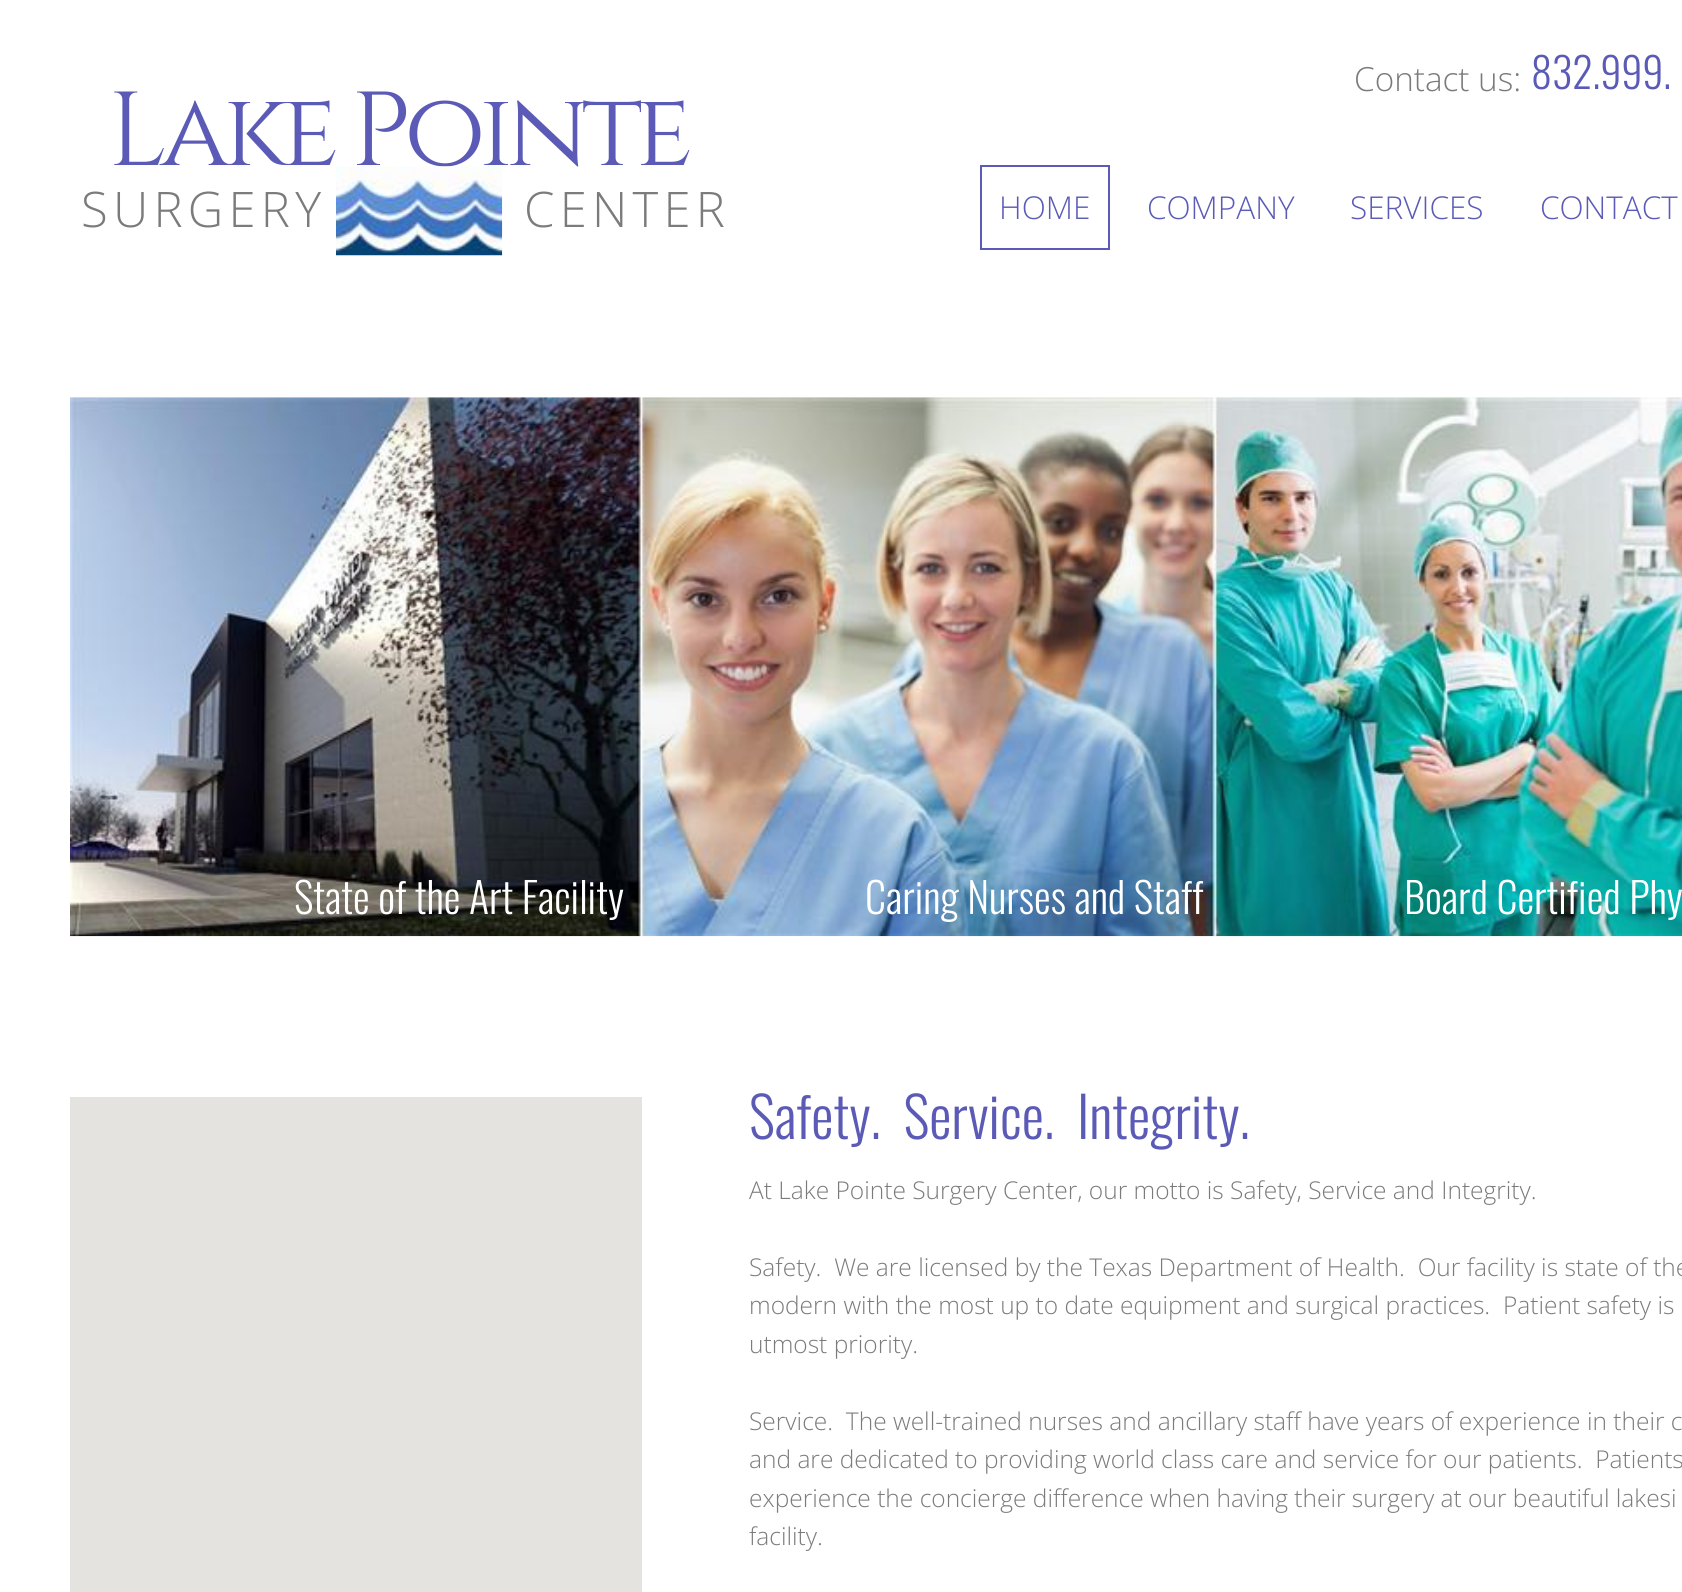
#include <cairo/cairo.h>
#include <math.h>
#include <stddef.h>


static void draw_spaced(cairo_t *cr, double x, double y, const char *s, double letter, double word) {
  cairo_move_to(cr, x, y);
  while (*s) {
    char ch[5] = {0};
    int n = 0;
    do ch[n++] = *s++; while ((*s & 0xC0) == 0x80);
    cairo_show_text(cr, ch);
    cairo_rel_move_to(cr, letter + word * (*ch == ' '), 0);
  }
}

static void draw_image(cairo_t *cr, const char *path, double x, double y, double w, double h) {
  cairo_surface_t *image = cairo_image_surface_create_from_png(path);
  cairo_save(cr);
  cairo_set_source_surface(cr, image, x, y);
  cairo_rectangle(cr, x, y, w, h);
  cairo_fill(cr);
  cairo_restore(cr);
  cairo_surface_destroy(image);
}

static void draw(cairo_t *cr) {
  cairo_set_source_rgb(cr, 1, 1, 1);
  cairo_paint(cr);
  cairo_rectangle(cr, 981, 166, 128, 83);
  cairo_set_source_rgb(cr, 91 / 255.0, 91 / 255.0, 183 / 255.0);
  cairo_stroke(cr);
  draw_image(cr, "images/2.png", 70, 397, 1612, 540);
  cairo_set_source_rgb(cr, 229 / 255.0, 227 / 255.0, 223 / 255.0);
  cairo_rectangle(cr, 70, 1097, 572, 495);
  cairo_fill(cr);
  cairo_select_font_face(cr, "Open Sans Light", CAIRO_FONT_SLANT_NORMAL, CAIRO_FONT_WEIGHT_NORMAL);
  cairo_set_font_size(cr, 33.25);
  cairo_set_source_rgb(cr, 124 / 255.0, 123 / 255.0, 123 / 255.0);
  cairo_move_to(cr, 1354, 91);
  cairo_show_text(cr, "Contact us:");
  cairo_select_font_face(cr, "Oswald Light", CAIRO_FONT_SLANT_NORMAL, CAIRO_FONT_WEIGHT_NORMAL);
  cairo_set_font_size(cr, 42);
  cairo_set_source_rgb(cr, 91 / 255.0, 91 / 255.0, 183 / 255.0);
  cairo_move_to(cr, 1531, 89);
  cairo_show_text(cr, "832.999.");
  cairo_select_font_face(cr, "Cinzel", CAIRO_FONT_SLANT_NORMAL, CAIRO_FONT_WEIGHT_NORMAL);
  cairo_set_font_size(cr, 105);
  draw_spaced(cr, 108, 165, "Lake Pointe", -7, 0);
  cairo_select_font_face(cr, "Open Sans Light", CAIRO_FONT_SLANT_NORMAL, CAIRO_FONT_WEIGHT_NORMAL);
  cairo_set_font_size(cr, 49);
  cairo_set_source_rgb(cr, 124 / 255.0, 123 / 255.0, 123 / 255.0);
  draw_spaced(cr, 81, 227, "SURGERY           CENTER", 5.25, 0);
  draw_image(cr, "images/1.png", 336, 166, 167, 90);
  cairo_set_font_size(cr, 31.5);
  cairo_set_source_rgb(cr, 91 / 255.0, 91 / 255.0, 183 / 255.0);
  cairo_move_to(cr, 999, 219);
  cairo_show_text(cr, "HOME");
  cairo_move_to(cr, 1147, 219);
  cairo_show_text(cr, "COMPANY");
  cairo_move_to(cr, 1350, 219);
  cairo_show_text(cr, "SERVICES");
  cairo_move_to(cr, 1540, 219);
  cairo_show_text(cr, "CONTACT");
  cairo_select_font_face(cr, "Oswald Light", CAIRO_FONT_SLANT_NORMAL, CAIRO_FONT_WEIGHT_NORMAL);
  cairo_set_font_size(cr, 42);
  cairo_set_source_rgb(cr, 1, 1, 1);
  cairo_move_to(cr, 294, 914);
  cairo_show_text(cr, "State of the Art Facility");
  cairo_move_to(cr, 865, 914);
  cairo_show_text(cr, "Caring Nurses and Staff");
  cairo_move_to(cr, 1404, 914);
  cairo_show_text(cr, "Board Certified Phy");
  cairo_set_font_size(cr, 56);
  cairo_set_source_rgb(cr, 91 / 255.0, 91 / 255.0, 183 / 255.0);
  cairo_move_to(cr, 749, 1139);
  cairo_show_text(cr, "Safety.  Service.  Integrity.");
  cairo_select_font_face(cr, "Open Sans Light", CAIRO_FONT_SLANT_NORMAL, CAIRO_FONT_WEIGHT_NORMAL);
  cairo_set_font_size(cr, 24.5);
  cairo_set_source_rgb(cr, 124 / 255.0, 123 / 255.0, 123 / 255.0);
  cairo_move_to(cr, 749, 1199);
  cairo_show_text(cr, "At Lake Pointe Surgery Center, our motto is Safety, Service and Integrity.");
  cairo_move_to(cr, 749, 1276);
  cairo_show_text(cr, "Safety.  We are licensed by the Texas Department of Health.  Our facility is state of the");
  cairo_move_to(cr, 749, 1314);
  cairo_show_text(cr, "modern with the most up to date equipment and surgical practices.  Patient safety is");
  cairo_move_to(cr, 749, 1353);
  cairo_show_text(cr, "utmost priority.");
  cairo_move_to(cr, 749, 1430);
  cairo_show_text(cr, "Service.  The well-trained nurses and ancillary staff have years of experience in their c");
  cairo_move_to(cr, 749, 1468);
  cairo_show_text(cr, "and are dedicated to providing world class care and service for our patients.  Patients");
  cairo_move_to(cr, 749, 1507);
  cairo_show_text(cr, "experience the concierge difference when having their surgery at our beautiful lakesi");
  cairo_move_to(cr, 749, 1545);
  cairo_show_text(cr, "facility.");
}

int main(void) {
  cairo_surface_t *surface = cairo_image_surface_create(CAIRO_FORMAT_RGB24, 1682, 1592);
  cairo_t *cr = cairo_create(surface);
  cairo_font_options_t *options = cairo_font_options_create();
  cairo_font_options_set_hint_metrics(options, CAIRO_HINT_METRICS_OFF);
  cairo_font_options_set_hint_style(options, CAIRO_HINT_STYLE_NONE);
  cairo_set_font_options(cr, options);
  cairo_set_miter_limit(cr, 4);
  draw(cr);
  cairo_surface_write_to_png(surface, "out.png");
  cairo_font_options_destroy(options);
  cairo_destroy(cr);
  cairo_surface_destroy(surface);
  return 0;
}
